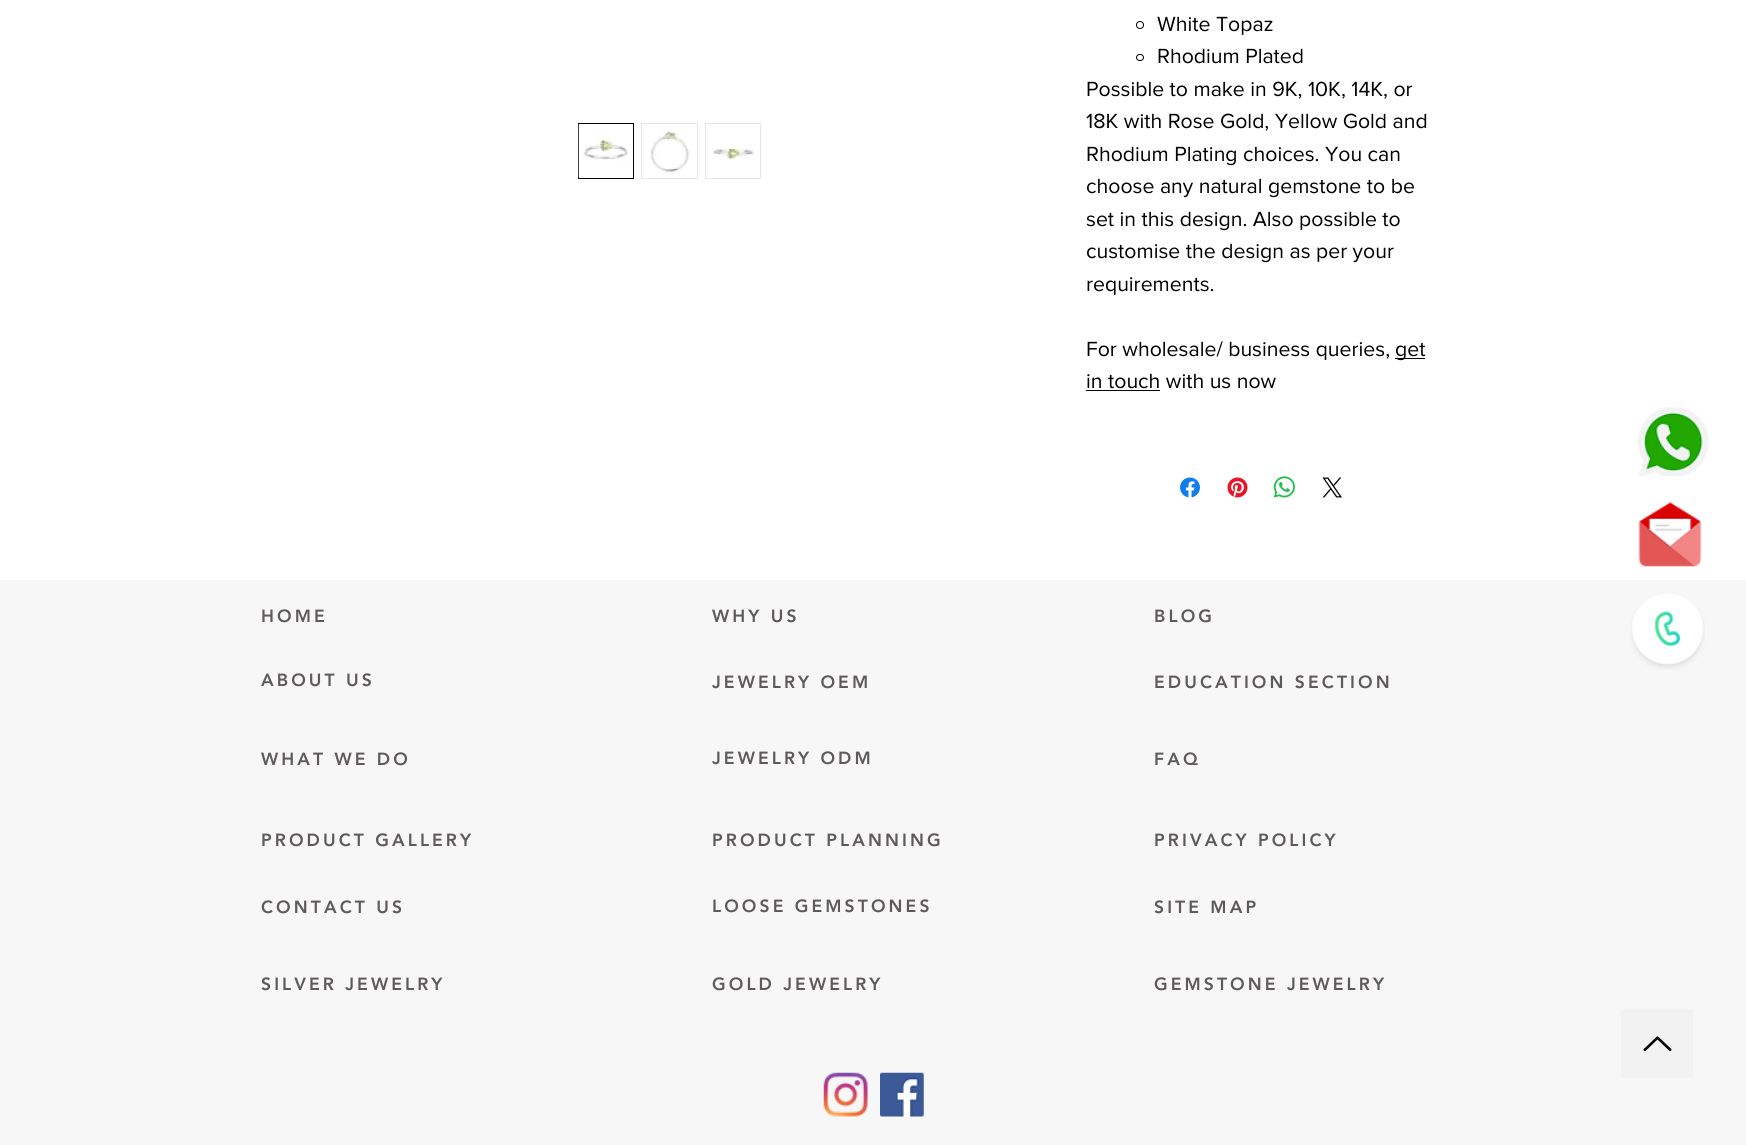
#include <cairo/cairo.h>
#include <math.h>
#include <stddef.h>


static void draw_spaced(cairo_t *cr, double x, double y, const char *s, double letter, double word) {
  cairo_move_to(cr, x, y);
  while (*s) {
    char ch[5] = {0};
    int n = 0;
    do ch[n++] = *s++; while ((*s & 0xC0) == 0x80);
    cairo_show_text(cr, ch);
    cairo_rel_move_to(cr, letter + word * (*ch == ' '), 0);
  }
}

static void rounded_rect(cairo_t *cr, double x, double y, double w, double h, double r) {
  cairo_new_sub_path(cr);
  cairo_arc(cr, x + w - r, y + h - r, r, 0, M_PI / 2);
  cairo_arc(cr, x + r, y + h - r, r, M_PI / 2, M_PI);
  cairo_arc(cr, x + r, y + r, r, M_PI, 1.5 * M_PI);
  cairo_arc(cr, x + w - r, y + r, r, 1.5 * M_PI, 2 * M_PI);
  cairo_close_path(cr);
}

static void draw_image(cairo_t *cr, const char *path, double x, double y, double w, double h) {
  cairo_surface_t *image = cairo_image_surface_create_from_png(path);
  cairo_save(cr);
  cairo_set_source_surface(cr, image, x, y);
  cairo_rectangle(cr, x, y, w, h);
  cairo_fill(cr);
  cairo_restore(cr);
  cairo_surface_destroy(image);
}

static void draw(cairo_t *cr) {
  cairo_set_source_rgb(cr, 1, 1, 1);
  cairo_paint(cr);
  cairo_rectangle(cr, 578.5, 123.5, 55, 55);
  cairo_set_source_rgb(cr, 0, 0, 0);
  cairo_set_line_width(cr, 1);
  cairo_stroke(cr);
  draw_image(cr, "images/1.png", 578, 124, 51, 54);
  cairo_rectangle(cr, 641.5, 123.5, 56, 55);
  cairo_set_source_rgb(cr, 232 / 255.0, 230 / 255.0, 230 / 255.0);
  cairo_stroke(cr);
  draw_image(cr, "images/2.png", 650, 129, 40, 45);
  cairo_rectangle(cr, 705.5, 123.5, 55, 55);
  cairo_stroke(cr);
  draw_image(cr, "images/3.png", 712, 146, 42, 14);
  cairo_arc(cr, 1140, 25, 3.5, 0, 2 * M_PI);
  cairo_set_source_rgb(cr, 0, 0, 0);
  cairo_stroke(cr);
  rounded_rect(cr, 1136.5, 54.5, 7, 6, 3);
  cairo_stroke(cr);
  cairo_rectangle(cr, 1395, 358, 30, 1);
  cairo_fill(cr);
  cairo_rectangle(cr, 1086, 390, 74, 1);
  cairo_fill(cr);
  draw_image(cr, "images/4.png", 1180, 477, 20, 21);
  draw_image(cr, "images/5.png", 1227, 477, 21, 21);
  draw_image(cr, "images/6.png", 1273, 476, 22, 22);
  draw_image(cr, "images/7.png", 1322, 477, 20, 21);
  draw_image(cr, "images/8.png", 1637, 407, 72, 70);
  draw_image(cr, "images/9.png", 1638, 502, 64, 65);
  cairo_set_source_rgb(cr, 247 / 255.0, 247 / 255.0, 247 / 255.0);
  cairo_rectangle(cr, 0, 580, 1746, 565);
  cairo_fill(cr);
  draw_image(cr, "images/10.png", 1630, 594, 75, 76);
  draw_image(cr, "images/11.png", 823, 1072, 45, 45);
  draw_image(cr, "images/12.png", 880, 1072, 44, 45);
  cairo_set_source_rgb(cr, 242 / 255.0, 242 / 255.0, 242 / 255.0);
  cairo_rectangle(cr, 1621, 1009, 72, 69);
  cairo_fill(cr);
  draw_image(cr, "images/13.png", 1643, 1036, 29, 16);
  cairo_select_font_face(cr, "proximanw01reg", CAIRO_FONT_SLANT_NORMAL, CAIRO_FONT_WEIGHT_NORMAL);
  cairo_set_font_size(cr, 21.25);
  cairo_set_source_rgb(cr, 0, 0, 0);
  cairo_move_to(cr, 1157, 31);
  cairo_show_text(cr, "White Topaz");
  cairo_move_to(cr, 1157, 63);
  cairo_show_text(cr, "Rhodium Plated");
  cairo_move_to(cr, 1086, 96);
  cairo_show_text(cr, "Possible to make in 9K, 10K, 14K, or");
  cairo_move_to(cr, 1086, 128);
  cairo_show_text(cr, "18K with Rose Gold, Yellow Gold and");
  cairo_move_to(cr, 1086, 161);
  cairo_show_text(cr, "Rhodium Plating choices. You can");
  cairo_move_to(cr, 1086, 193);
  cairo_show_text(cr, "choose any natural gemstone to be");
  cairo_move_to(cr, 1086, 226);
  cairo_show_text(cr, "set in this design. Also possible to");
  cairo_move_to(cr, 1086, 258);
  cairo_show_text(cr, "customise the design as per your");
  cairo_move_to(cr, 1086, 291);
  cairo_show_text(cr, "requirements.");
  cairo_move_to(cr, 1086, 356);
  cairo_show_text(cr, "For wholesale/ business queries,");
  cairo_move_to(cr, 1395, 356);
  cairo_show_text(cr, "get");
  cairo_move_to(cr, 1086, 388);
  cairo_show_text(cr, "in touch with us now");
  cairo_select_font_face(cr, "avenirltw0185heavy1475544 Black", CAIRO_FONT_SLANT_NORMAL, CAIRO_FONT_WEIGHT_NORMAL);
  cairo_set_font_size(cr, 17.5);
  cairo_set_source_rgb(cr, 94 / 255.0, 90 / 255.0, 90 / 255.0);
  draw_spaced(cr, 261, 622, "HOME", 3.1, 0);
  draw_spaced(cr, 712, 622, "WHY US", 3.1, 0);
  draw_spaced(cr, 1154, 622, "BLOG", 3.1, 0);
  draw_spaced(cr, 261, 686, "ABOUT US", 3.1, 0);
  draw_spaced(cr, 712, 688, "JEWELRY OEM", 3.1, 0);
  draw_spaced(cr, 1154, 688, "EDUCATION SECTION", 3.1, 0);
  draw_spaced(cr, 261, 765, "WHAT WE DO", 3.1, 0);
  draw_spaced(cr, 712, 764, "JEWELRY ODM", 3.1, 0);
  draw_spaced(cr, 1154, 765, "FAQ", 3.1, 0);
  draw_spaced(cr, 261, 846, "PRODUCT GALLERY", 3.1, 0);
  draw_spaced(cr, 712, 846, "PRODUCT PLANNING", 3.1, 0);
  draw_spaced(cr, 1154, 846, "PRIVACY POLICY", 3.1, 0);
  draw_spaced(cr, 261, 913, "CONTACT US", 3.1, 0);
  draw_spaced(cr, 712, 912, "LOOSE GEMSTONES", 3.1, 0);
  draw_spaced(cr, 1154, 913, "SITE MAP", 3.1, 0);
  draw_spaced(cr, 261, 990, "SILVER JEWELRY", 3.1, 0);
  draw_spaced(cr, 712, 990, "GOLD JEWELRY", 3.1, 0);
  draw_spaced(cr, 1154, 990, "GEMSTONE JEWELRY", 3.1, 0);
}

int main(void) {
  cairo_surface_t *surface = cairo_image_surface_create(CAIRO_FORMAT_RGB24, 1746, 1145);
  cairo_t *cr = cairo_create(surface);
  cairo_font_options_t *options = cairo_font_options_create();
  cairo_font_options_set_hint_metrics(options, CAIRO_HINT_METRICS_OFF);
  cairo_font_options_set_hint_style(options, CAIRO_HINT_STYLE_NONE);
  cairo_set_font_options(cr, options);
  cairo_set_miter_limit(cr, 4);
  draw(cr);
  cairo_surface_write_to_png(surface, "out.png");
  cairo_font_options_destroy(options);
  cairo_destroy(cr);
  cairo_surface_destroy(surface);
  return 0;
}
